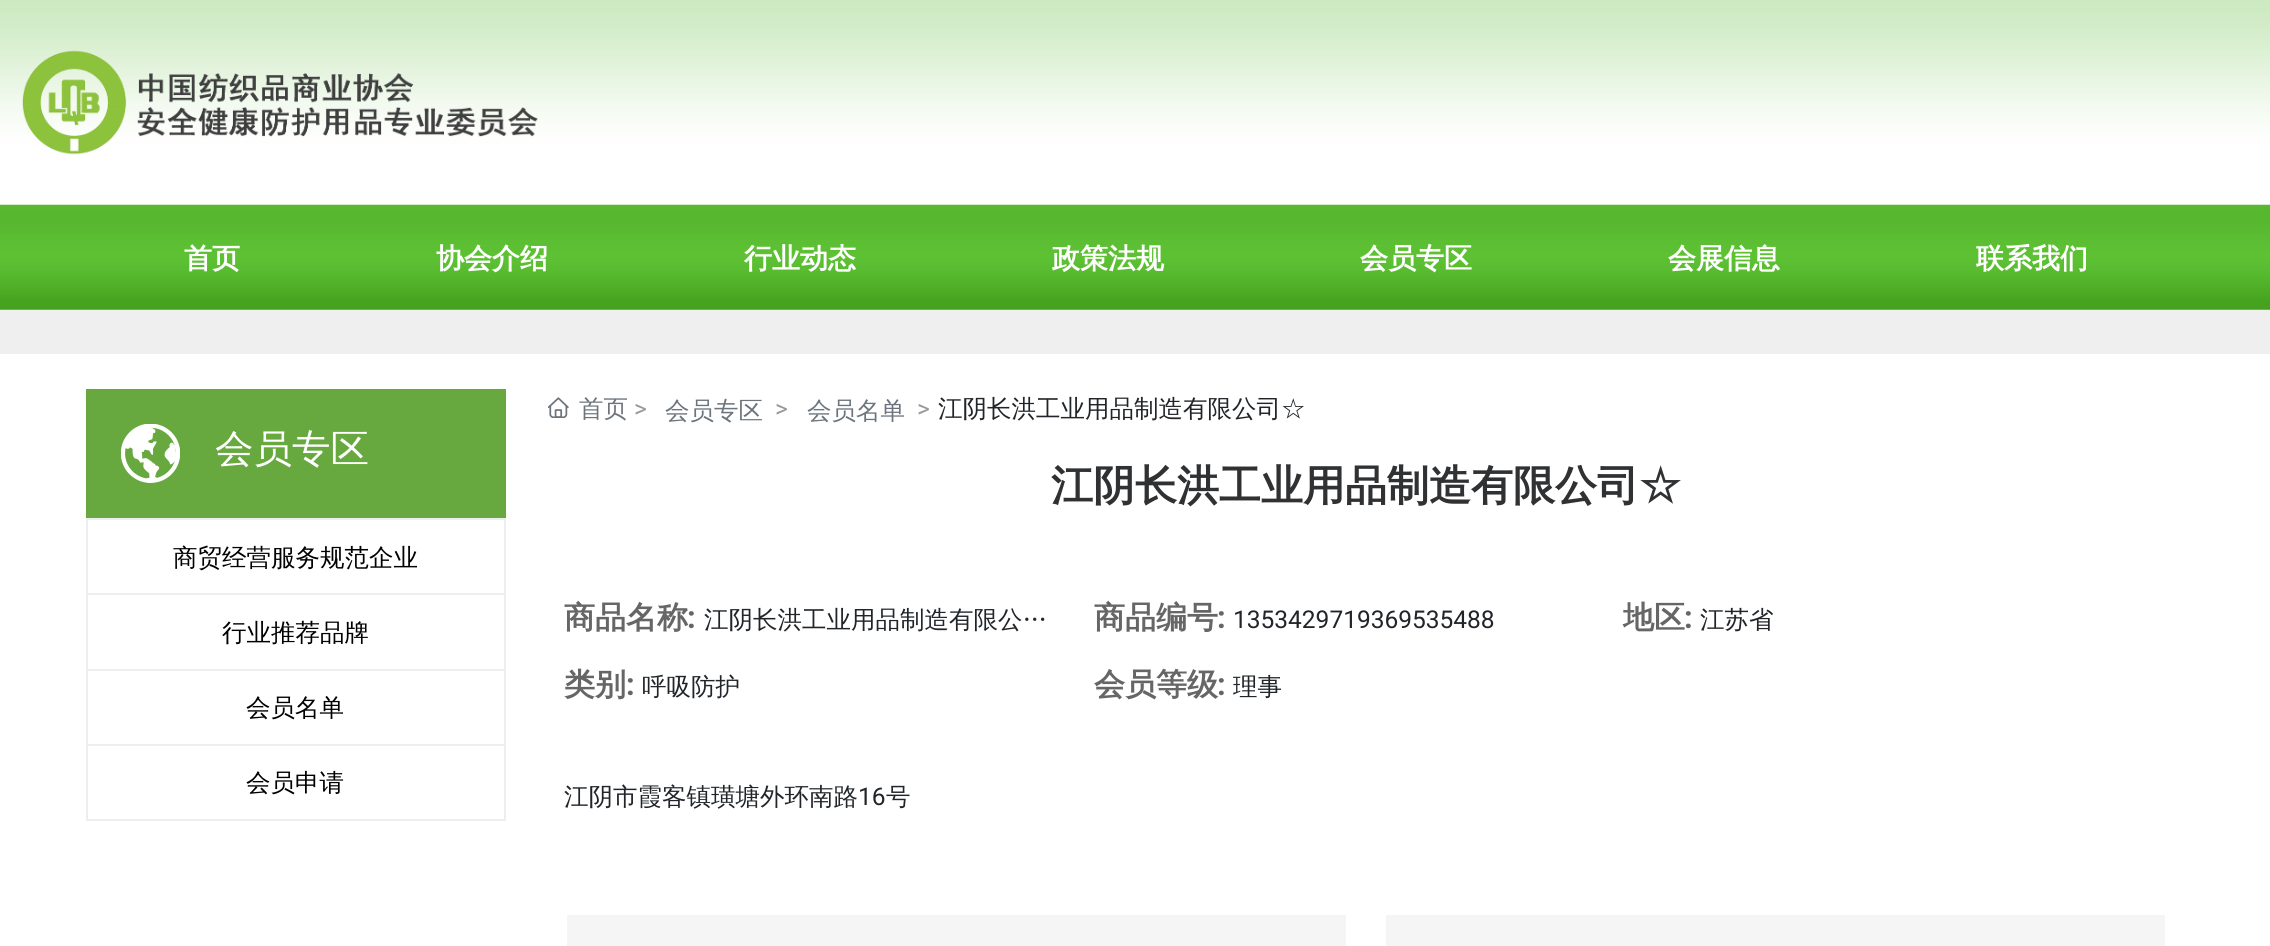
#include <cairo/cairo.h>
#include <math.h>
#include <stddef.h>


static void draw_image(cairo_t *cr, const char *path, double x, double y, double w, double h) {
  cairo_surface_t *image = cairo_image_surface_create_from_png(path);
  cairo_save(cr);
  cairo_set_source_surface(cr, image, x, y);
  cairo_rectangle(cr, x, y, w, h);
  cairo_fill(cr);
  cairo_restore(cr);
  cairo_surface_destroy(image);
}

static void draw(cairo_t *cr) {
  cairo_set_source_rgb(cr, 1, 1, 1);
  cairo_paint(cr);
  cairo_set_source_rgb(cr, 239 / 255.0, 239 / 255.0, 239 / 255.0);
  cairo_rectangle(cr, 0, 309, 2270, 45);
  cairo_fill(cr);
  draw_image(cr, "images/1.png", 0, 0, 2270, 205);
  draw_image(cr, "images/2.png", 22, 50, 516, 105);
  draw_image(cr, "images/3.png", 0, 204, 2270, 106);
  cairo_set_source_rgb(cr, 103 / 255.0, 169 / 255.0, 63 / 255.0);
  cairo_rectangle(cr, 86, 389, 420, 129);
  cairo_fill(cr);
  draw_image(cr, "images/4.png", 121, 424, 59, 59);
  cairo_rectangle(cr, 87, 519, 418, 301);
  cairo_set_source_rgb(cr, 238 / 255.0, 238 / 255.0, 238 / 255.0);
  cairo_stroke(cr);
  cairo_rectangle(cr, 88, 593, 416, 2);
  cairo_fill(cr);
  cairo_rectangle(cr, 88, 669, 416, 2);
  cairo_fill(cr);
  cairo_rectangle(cr, 88, 744, 416, 2);
  cairo_fill(cr);
  draw_image(cr, "images/5.png", 548, 397, 21, 21);
  cairo_set_source_rgb(cr, 245 / 255.0, 245 / 255.0, 245 / 255.0);
  cairo_rectangle(cr, 567, 915, 779, 31);
  cairo_fill(cr);
  cairo_rectangle(cr, 1386, 915, 779, 31);
  cairo_fill(cr);
  cairo_select_font_face(cr, "WenQuanYi Zen Hei", CAIRO_FONT_SLANT_NORMAL, CAIRO_FONT_WEIGHT_BOLD);
  cairo_set_font_size(cr, 28);
  cairo_set_source_rgb(cr, 1, 1, 1);
  cairo_move_to(cr, 184, 268);
  cairo_show_text(cr, "首页");
  cairo_move_to(cr, 436, 268);
  cairo_show_text(cr, "协会介绍");
  cairo_move_to(cr, 744, 268);
  cairo_show_text(cr, "行业动态");
  cairo_move_to(cr, 1052, 268);
  cairo_show_text(cr, "政策法规");
  cairo_move_to(cr, 1360, 268);
  cairo_show_text(cr, "会员专区");
  cairo_move_to(cr, 1668, 268);
  cairo_show_text(cr, "会展信息");
  cairo_move_to(cr, 1976, 268);
  cairo_show_text(cr, "联系我们");
  cairo_select_font_face(cr, "WenQuanYi Zen Hei Medium", CAIRO_FONT_SLANT_NORMAL, CAIRO_FONT_WEIGHT_NORMAL);
  cairo_set_font_size(cr, 38.5);
  cairo_move_to(cr, 215, 462);
  cairo_show_text(cr, "会员专区");
  cairo_set_font_size(cr, 24.5);
  cairo_set_source_rgb(cr, 0, 0, 0);
  cairo_move_to(cr, 173, 566);
  cairo_show_text(cr, "商贸经营服务规范企业");
  cairo_move_to(cr, 222, 641);
  cairo_show_text(cr, "行业推荐品牌");
  cairo_move_to(cr, 246, 716);
  cairo_show_text(cr, "会员名单");
  cairo_move_to(cr, 246, 791);
  cairo_show_text(cr, "会员申请");
  cairo_set_source_rgb(cr, 108 / 255.0, 117 / 255.0, 125 / 255.0);
  cairo_move_to(cr, 579, 417);
  cairo_show_text(cr, "首页");
  cairo_select_font_face(cr, "Roboto", CAIRO_FONT_SLANT_NORMAL, CAIRO_FONT_WEIGHT_NORMAL);
  cairo_set_source_rgb(cr, 153 / 255.0, 153 / 255.0, 153 / 255.0);
  cairo_move_to(cr, 634, 417);
  cairo_show_text(cr, ">");
  cairo_select_font_face(cr, "WenQuanYi Zen Hei Medium", CAIRO_FONT_SLANT_NORMAL, CAIRO_FONT_WEIGHT_NORMAL);
  cairo_set_source_rgb(cr, 108 / 255.0, 117 / 255.0, 125 / 255.0);
  cairo_move_to(cr, 665, 419);
  cairo_show_text(cr, "会员专区");
  cairo_select_font_face(cr, "Roboto", CAIRO_FONT_SLANT_NORMAL, CAIRO_FONT_WEIGHT_NORMAL);
  cairo_set_source_rgb(cr, 153 / 255.0, 153 / 255.0, 153 / 255.0);
  cairo_move_to(cr, 775, 417);
  cairo_show_text(cr, ">");
  cairo_select_font_face(cr, "WenQuanYi Zen Hei Medium", CAIRO_FONT_SLANT_NORMAL, CAIRO_FONT_WEIGHT_NORMAL);
  cairo_set_source_rgb(cr, 108 / 255.0, 117 / 255.0, 125 / 255.0);
  cairo_move_to(cr, 807, 419);
  cairo_show_text(cr, "会员名单");
  cairo_select_font_face(cr, "Roboto", CAIRO_FONT_SLANT_NORMAL, CAIRO_FONT_WEIGHT_NORMAL);
  cairo_set_source_rgb(cr, 153 / 255.0, 153 / 255.0, 153 / 255.0);
  cairo_move_to(cr, 917, 417);
  cairo_show_text(cr, ">");
  cairo_select_font_face(cr, "WenQuanYi Zen Hei Medium", CAIRO_FONT_SLANT_NORMAL, CAIRO_FONT_WEIGHT_NORMAL);
  cairo_set_source_rgb(cr, 33 / 255.0, 37 / 255.0, 41 / 255.0);
  cairo_move_to(cr, 938, 417);
  cairo_show_text(cr, "江阴长洪工业用品制造有限公司☆");
  cairo_select_font_face(cr, "WenQuanYi Zen Hei", CAIRO_FONT_SLANT_NORMAL, CAIRO_FONT_WEIGHT_BOLD);
  cairo_set_font_size(cr, 42);
  cairo_set_source_rgb(cr, 48 / 255.0, 49 / 255.0, 51 / 255.0);
  cairo_move_to(cr, 1051, 500);
  cairo_show_text(cr, "江阴长洪工业用品制造有限公司☆");
  cairo_set_font_size(cr, 31);
  cairo_set_source_rgb(cr, 102 / 255.0, 102 / 255.0, 102 / 255.0);
  cairo_move_to(cr, 564, 628);
  cairo_show_text(cr, "商品名称");
  cairo_select_font_face(cr, "Roboto", CAIRO_FONT_SLANT_NORMAL, CAIRO_FONT_WEIGHT_BOLD);
  cairo_move_to(cr, 687, 628);
  cairo_show_text(cr, ":");
  cairo_select_font_face(cr, "WenQuanYi Zen Hei Medium", CAIRO_FONT_SLANT_NORMAL, CAIRO_FONT_WEIGHT_NORMAL);
  cairo_set_font_size(cr, 24.5);
  cairo_set_source_rgb(cr, 33 / 255.0, 37 / 255.0, 41 / 255.0);
  cairo_move_to(cr, 704, 628);
  cairo_show_text(cr, "江阴长洪工业用品制造有限公…");
  cairo_select_font_face(cr, "WenQuanYi Zen Hei", CAIRO_FONT_SLANT_NORMAL, CAIRO_FONT_WEIGHT_BOLD);
  cairo_set_font_size(cr, 31);
  cairo_set_source_rgb(cr, 102 / 255.0, 102 / 255.0, 102 / 255.0);
  cairo_move_to(cr, 1094, 628);
  cairo_show_text(cr, "商品编号");
  cairo_select_font_face(cr, "Roboto", CAIRO_FONT_SLANT_NORMAL, CAIRO_FONT_WEIGHT_BOLD);
  cairo_move_to(cr, 1217, 628);
  cairo_show_text(cr, ":");
  cairo_select_font_face(cr, "Roboto", CAIRO_FONT_SLANT_NORMAL, CAIRO_FONT_WEIGHT_NORMAL);
  cairo_set_font_size(cr, 24.5);
  cairo_set_source_rgb(cr, 33 / 255.0, 37 / 255.0, 41 / 255.0);
  cairo_move_to(cr, 1233, 628);
  cairo_show_text(cr, "1353429719369535488");
  cairo_select_font_face(cr, "WenQuanYi Zen Hei", CAIRO_FONT_SLANT_NORMAL, CAIRO_FONT_WEIGHT_BOLD);
  cairo_set_font_size(cr, 31);
  cairo_set_source_rgb(cr, 102 / 255.0, 102 / 255.0, 102 / 255.0);
  cairo_move_to(cr, 1623, 628);
  cairo_show_text(cr, "地区");
  cairo_select_font_face(cr, "Roboto", CAIRO_FONT_SLANT_NORMAL, CAIRO_FONT_WEIGHT_BOLD);
  cairo_move_to(cr, 1684, 628);
  cairo_show_text(cr, ":");
  cairo_select_font_face(cr, "WenQuanYi Zen Hei Medium", CAIRO_FONT_SLANT_NORMAL, CAIRO_FONT_WEIGHT_NORMAL);
  cairo_set_font_size(cr, 24.5);
  cairo_set_source_rgb(cr, 33 / 255.0, 37 / 255.0, 41 / 255.0);
  cairo_move_to(cr, 1700, 628);
  cairo_show_text(cr, "江苏省");
  cairo_select_font_face(cr, "WenQuanYi Zen Hei", CAIRO_FONT_SLANT_NORMAL, CAIRO_FONT_WEIGHT_BOLD);
  cairo_set_font_size(cr, 31);
  cairo_set_source_rgb(cr, 102 / 255.0, 102 / 255.0, 102 / 255.0);
  cairo_move_to(cr, 564, 695);
  cairo_show_text(cr, "类别");
  cairo_select_font_face(cr, "Roboto", CAIRO_FONT_SLANT_NORMAL, CAIRO_FONT_WEIGHT_BOLD);
  cairo_move_to(cr, 626, 695);
  cairo_show_text(cr, ":");
  cairo_select_font_face(cr, "WenQuanYi Zen Hei Medium", CAIRO_FONT_SLANT_NORMAL, CAIRO_FONT_WEIGHT_NORMAL);
  cairo_set_font_size(cr, 24.5);
  cairo_set_source_rgb(cr, 33 / 255.0, 37 / 255.0, 41 / 255.0);
  cairo_move_to(cr, 642, 695);
  cairo_show_text(cr, "呼吸防护");
  cairo_select_font_face(cr, "WenQuanYi Zen Hei", CAIRO_FONT_SLANT_NORMAL, CAIRO_FONT_WEIGHT_BOLD);
  cairo_set_font_size(cr, 31);
  cairo_set_source_rgb(cr, 102 / 255.0, 102 / 255.0, 102 / 255.0);
  cairo_move_to(cr, 1094, 695);
  cairo_show_text(cr, "会员等级");
  cairo_select_font_face(cr, "Roboto", CAIRO_FONT_SLANT_NORMAL, CAIRO_FONT_WEIGHT_BOLD);
  cairo_move_to(cr, 1217, 695);
  cairo_show_text(cr, ":");
  cairo_select_font_face(cr, "WenQuanYi Zen Hei Medium", CAIRO_FONT_SLANT_NORMAL, CAIRO_FONT_WEIGHT_NORMAL);
  cairo_set_font_size(cr, 24.5);
  cairo_set_source_rgb(cr, 33 / 255.0, 37 / 255.0, 41 / 255.0);
  cairo_move_to(cr, 1233, 695);
  cairo_show_text(cr, "理事");
  cairo_move_to(cr, 564, 805);
  cairo_show_text(cr, "江阴市霞客镇璜塘外环南路");
  cairo_select_font_face(cr, "Roboto", CAIRO_FONT_SLANT_NORMAL, CAIRO_FONT_WEIGHT_NORMAL);
  cairo_move_to(cr, 858, 805);
  cairo_show_text(cr, "16");
  cairo_select_font_face(cr, "WenQuanYi Zen Hei Medium", CAIRO_FONT_SLANT_NORMAL, CAIRO_FONT_WEIGHT_NORMAL);
  cairo_move_to(cr, 886, 805);
  cairo_show_text(cr, "号");
}

int main(void) {
  cairo_surface_t *surface = cairo_image_surface_create(CAIRO_FORMAT_RGB24, 2270, 946);
  cairo_t *cr = cairo_create(surface);
  cairo_font_options_t *options = cairo_font_options_create();
  cairo_font_options_set_hint_metrics(options, CAIRO_HINT_METRICS_OFF);
  cairo_font_options_set_hint_style(options, CAIRO_HINT_STYLE_NONE);
  cairo_set_font_options(cr, options);
  cairo_set_miter_limit(cr, 4);
  draw(cr);
  cairo_surface_write_to_png(surface, "out.png");
  cairo_font_options_destroy(options);
  cairo_destroy(cr);
  cairo_surface_destroy(surface);
  return 0;
}
